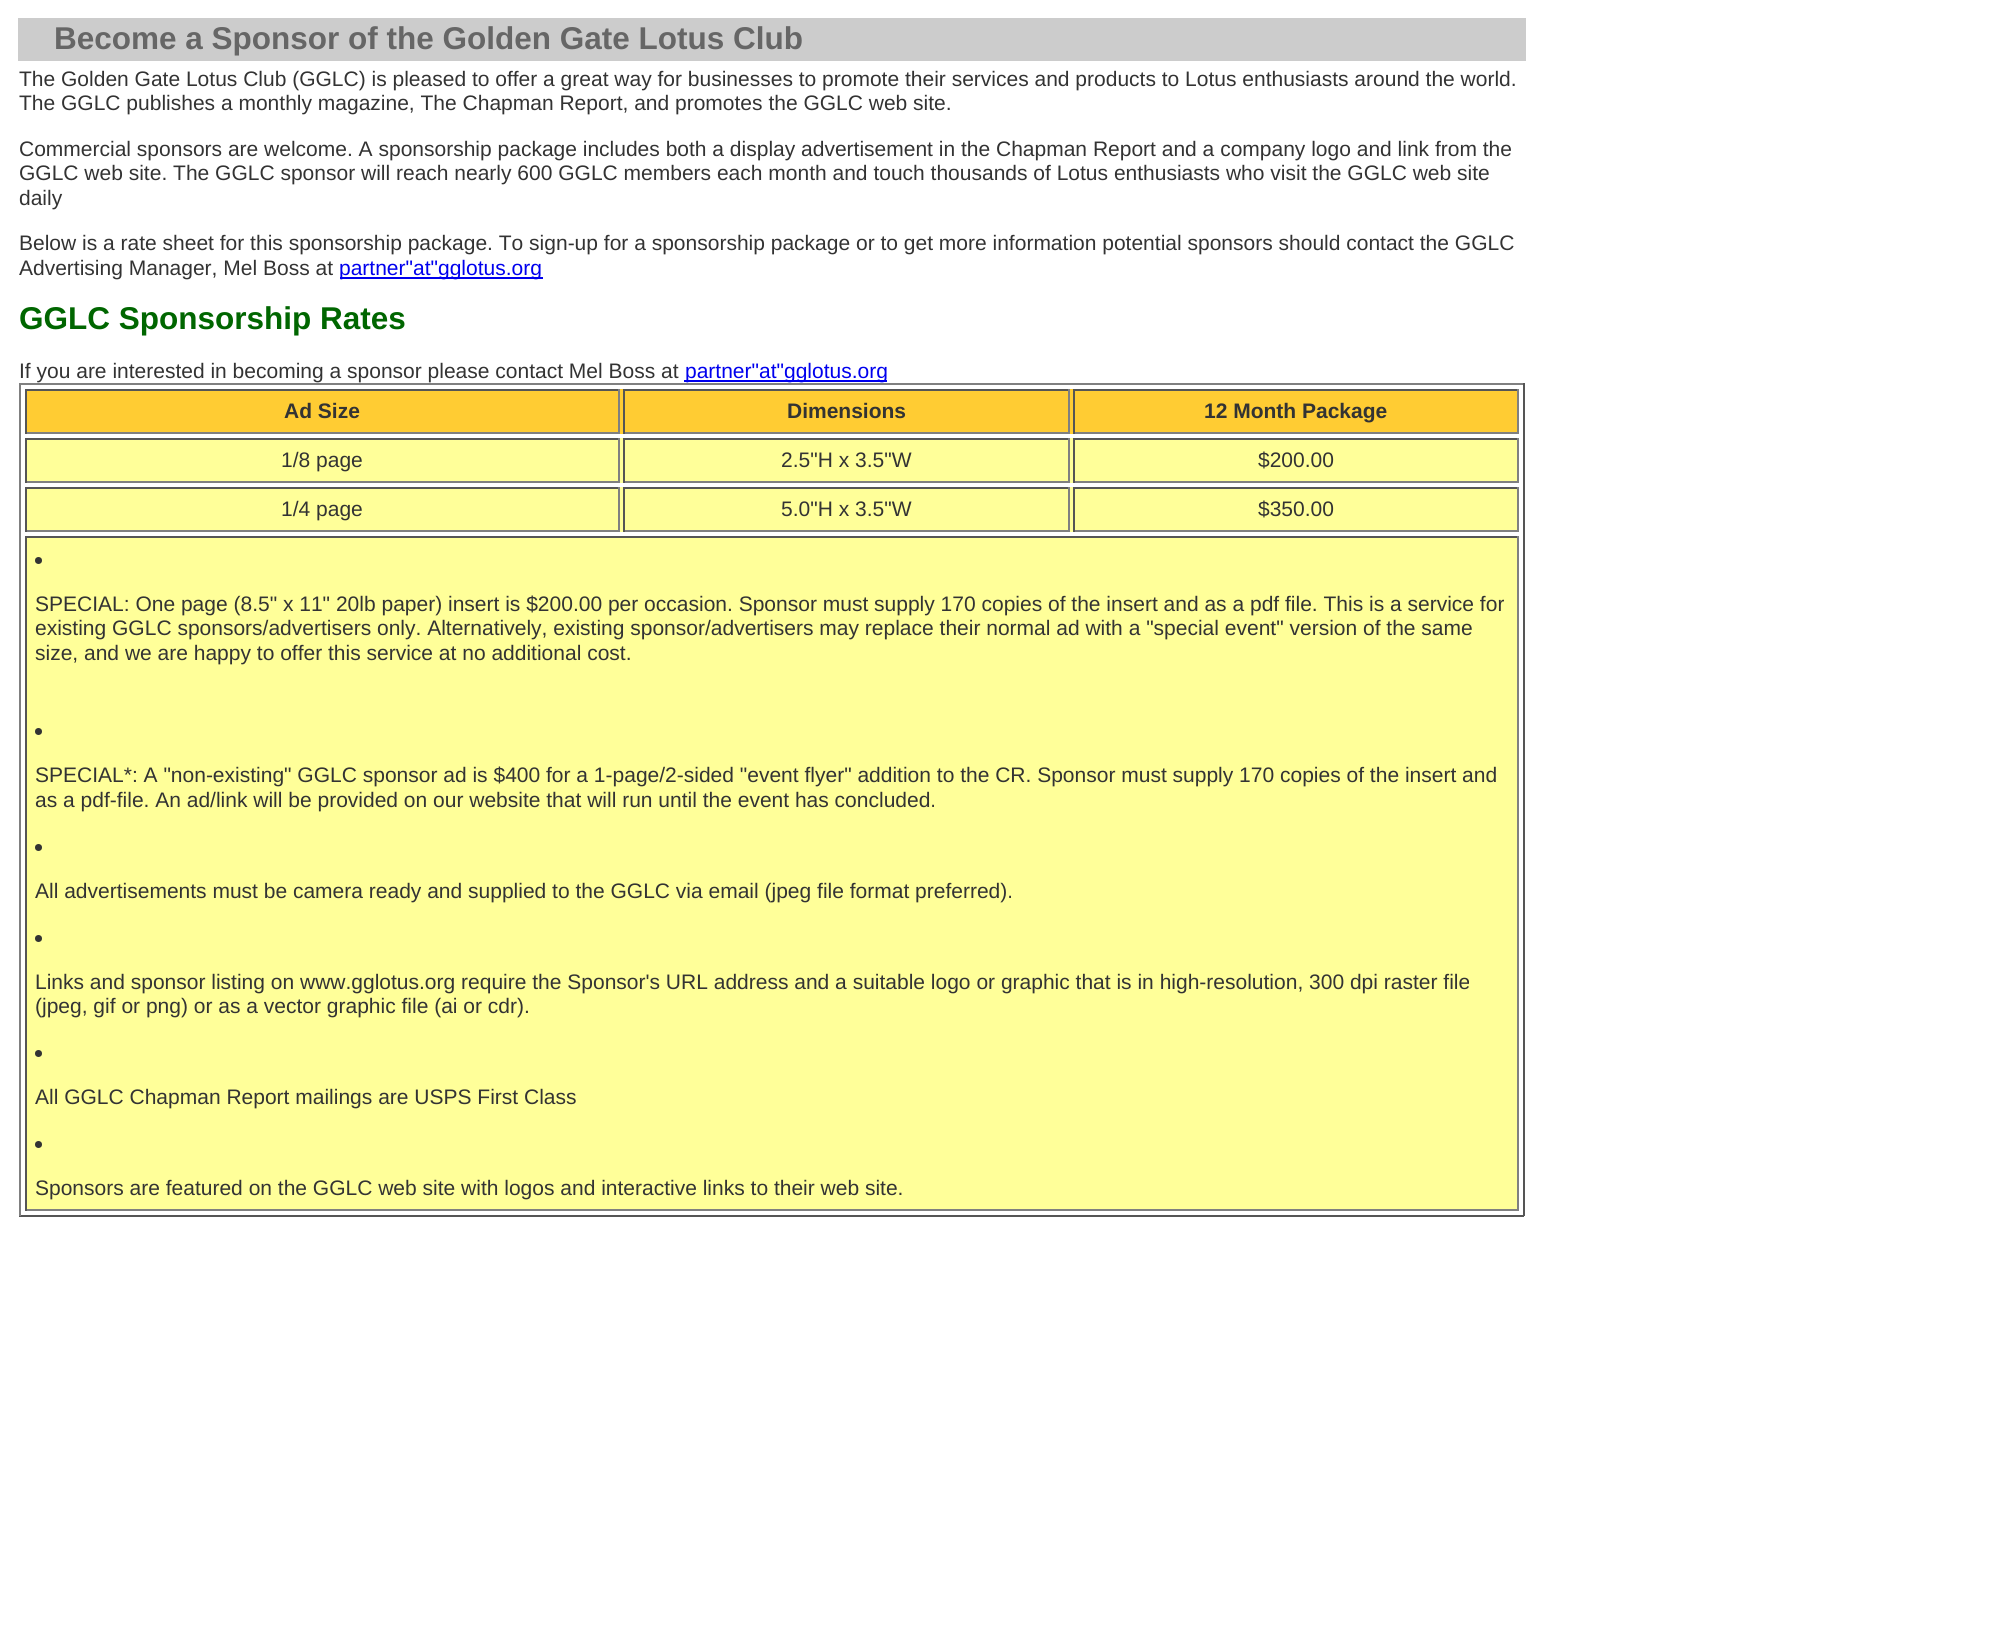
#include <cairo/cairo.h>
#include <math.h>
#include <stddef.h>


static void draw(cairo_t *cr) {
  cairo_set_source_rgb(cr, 1, 1, 1);
  cairo_paint(cr);
  cairo_set_source_rgb(cr, 204 / 255.0, 204 / 255.0, 204 / 255.0);
  cairo_rectangle(cr, 18, 18, 1508, 43);
  cairo_fill(cr);
  cairo_set_source_rgb(cr, 0, 0, 238 / 255.0);
  cairo_rectangle(cr, 340, 277, 203, 2);
  cairo_fill(cr);
  cairo_rectangle(cr, 684, 380, 203, 2);
  cairo_fill(cr);
  cairo_set_source_rgb(cr, 128 / 255.0, 128 / 255.0, 128 / 255.0);
  cairo_rectangle(cr, 19, 383, 1505, 2);
  cairo_fill(cr);
  cairo_set_source_rgb(cr, 85 / 255.0, 85 / 255.0, 85 / 255.0);
  cairo_rectangle(cr, 1523, 383, 2, 833);
  cairo_fill(cr);
  cairo_rectangle(cr, 19, 1215, 1505, 2);
  cairo_fill(cr);
  cairo_set_source_rgb(cr, 128 / 255.0, 128 / 255.0, 128 / 255.0);
  cairo_rectangle(cr, 19, 383, 2, 833);
  cairo_fill(cr);
  cairo_set_source_rgb(cr, 1, 204 / 255.0, 51 / 255.0);
  cairo_rectangle(cr, 27, 389, 1490, 45);
  cairo_fill(cr);
  cairo_set_source_rgb(cr, 85 / 255.0, 85 / 255.0, 85 / 255.0);
  cairo_rectangle(cr, 25, 389, 595, 2);
  cairo_fill(cr);
  cairo_set_source_rgb(cr, 128 / 255.0, 128 / 255.0, 128 / 255.0);
  cairo_rectangle(cr, 618, 389, 2, 45);
  cairo_fill(cr);
  cairo_rectangle(cr, 25, 432, 595, 2);
  cairo_fill(cr);
  cairo_set_source_rgb(cr, 85 / 255.0, 85 / 255.0, 85 / 255.0);
  cairo_rectangle(cr, 25, 389, 2, 45);
  cairo_fill(cr);
  cairo_rectangle(cr, 623, 389, 446, 2);
  cairo_fill(cr);
  cairo_set_source_rgb(cr, 128 / 255.0, 128 / 255.0, 128 / 255.0);
  cairo_rectangle(cr, 1068, 389, 2, 45);
  cairo_fill(cr);
  cairo_rectangle(cr, 623, 432, 446, 2);
  cairo_fill(cr);
  cairo_set_source_rgb(cr, 85 / 255.0, 85 / 255.0, 85 / 255.0);
  cairo_rectangle(cr, 623, 389, 2, 45);
  cairo_fill(cr);
  cairo_rectangle(cr, 1073, 389, 446, 2);
  cairo_fill(cr);
  cairo_set_source_rgb(cr, 128 / 255.0, 128 / 255.0, 128 / 255.0);
  cairo_rectangle(cr, 1517, 389, 2, 45);
  cairo_fill(cr);
  cairo_rectangle(cr, 1073, 432, 446, 2);
  cairo_fill(cr);
  cairo_set_source_rgb(cr, 85 / 255.0, 85 / 255.0, 85 / 255.0);
  cairo_rectangle(cr, 1073, 389, 2, 45);
  cairo_fill(cr);
  cairo_set_source_rgb(cr, 1, 1, 153 / 255.0);
  cairo_rectangle(cr, 27, 438, 1490, 45);
  cairo_fill(cr);
  cairo_set_source_rgb(cr, 85 / 255.0, 85 / 255.0, 85 / 255.0);
  cairo_rectangle(cr, 25, 438, 595, 2);
  cairo_fill(cr);
  cairo_set_source_rgb(cr, 128 / 255.0, 128 / 255.0, 128 / 255.0);
  cairo_rectangle(cr, 618, 438, 2, 45);
  cairo_fill(cr);
  cairo_rectangle(cr, 25, 481, 595, 2);
  cairo_fill(cr);
  cairo_set_source_rgb(cr, 85 / 255.0, 85 / 255.0, 85 / 255.0);
  cairo_rectangle(cr, 25, 438, 2, 45);
  cairo_fill(cr);
  cairo_rectangle(cr, 623, 438, 446, 2);
  cairo_fill(cr);
  cairo_set_source_rgb(cr, 128 / 255.0, 128 / 255.0, 128 / 255.0);
  cairo_rectangle(cr, 1068, 438, 2, 45);
  cairo_fill(cr);
  cairo_rectangle(cr, 623, 481, 446, 2);
  cairo_fill(cr);
  cairo_set_source_rgb(cr, 85 / 255.0, 85 / 255.0, 85 / 255.0);
  cairo_rectangle(cr, 623, 438, 2, 45);
  cairo_fill(cr);
  cairo_rectangle(cr, 1073, 438, 446, 2);
  cairo_fill(cr);
  cairo_set_source_rgb(cr, 128 / 255.0, 128 / 255.0, 128 / 255.0);
  cairo_rectangle(cr, 1517, 438, 2, 45);
  cairo_fill(cr);
  cairo_rectangle(cr, 1073, 481, 446, 2);
  cairo_fill(cr);
  cairo_set_source_rgb(cr, 85 / 255.0, 85 / 255.0, 85 / 255.0);
  cairo_rectangle(cr, 1073, 438, 2, 45);
  cairo_fill(cr);
  cairo_set_source_rgb(cr, 1, 1, 153 / 255.0);
  cairo_rectangle(cr, 27, 487, 1490, 45);
  cairo_fill(cr);
  cairo_set_source_rgb(cr, 85 / 255.0, 85 / 255.0, 85 / 255.0);
  cairo_rectangle(cr, 25, 487, 595, 2);
  cairo_fill(cr);
  cairo_set_source_rgb(cr, 128 / 255.0, 128 / 255.0, 128 / 255.0);
  cairo_rectangle(cr, 618, 487, 2, 45);
  cairo_fill(cr);
  cairo_rectangle(cr, 25, 530, 595, 2);
  cairo_fill(cr);
  cairo_set_source_rgb(cr, 85 / 255.0, 85 / 255.0, 85 / 255.0);
  cairo_rectangle(cr, 25, 487, 2, 45);
  cairo_fill(cr);
  cairo_rectangle(cr, 623, 487, 446, 2);
  cairo_fill(cr);
  cairo_set_source_rgb(cr, 128 / 255.0, 128 / 255.0, 128 / 255.0);
  cairo_rectangle(cr, 1068, 487, 2, 45);
  cairo_fill(cr);
  cairo_rectangle(cr, 623, 530, 446, 2);
  cairo_fill(cr);
  cairo_set_source_rgb(cr, 85 / 255.0, 85 / 255.0, 85 / 255.0);
  cairo_rectangle(cr, 623, 487, 2, 45);
  cairo_fill(cr);
  cairo_rectangle(cr, 1073, 487, 446, 2);
  cairo_fill(cr);
  cairo_set_source_rgb(cr, 128 / 255.0, 128 / 255.0, 128 / 255.0);
  cairo_rectangle(cr, 1517, 487, 2, 45);
  cairo_fill(cr);
  cairo_rectangle(cr, 1073, 530, 446, 2);
  cairo_fill(cr);
  cairo_set_source_rgb(cr, 85 / 255.0, 85 / 255.0, 85 / 255.0);
  cairo_rectangle(cr, 1073, 487, 2, 45);
  cairo_fill(cr);
  cairo_set_source_rgb(cr, 1, 1, 153 / 255.0);
  cairo_rectangle(cr, 27, 538, 1490, 671);
  cairo_fill(cr);
  cairo_set_source_rgb(cr, 85 / 255.0, 85 / 255.0, 85 / 255.0);
  cairo_rectangle(cr, 25, 536, 1494, 2);
  cairo_fill(cr);
  cairo_set_source_rgb(cr, 128 / 255.0, 128 / 255.0, 128 / 255.0);
  cairo_rectangle(cr, 1517, 536, 2, 675);
  cairo_fill(cr);
  cairo_rectangle(cr, 25, 1209, 1494, 2);
  cairo_fill(cr);
  cairo_set_source_rgb(cr, 85 / 255.0, 85 / 255.0, 85 / 255.0);
  cairo_rectangle(cr, 25, 536, 2, 675);
  cairo_fill(cr);
  cairo_set_source_rgb(cr, 51 / 255.0, 51 / 255.0, 51 / 255.0);
  cairo_arc(cr, 38.5, 560.5, 3.5, 0, 2 * M_PI);
  cairo_fill(cr);
  cairo_arc(cr, 38.5, 731.5, 3.5, 0, 2 * M_PI);
  cairo_fill(cr);
  cairo_arc(cr, 38.5, 847.5, 3.5, 0, 2 * M_PI);
  cairo_fill(cr);
  cairo_arc(cr, 38.5, 938.5, 3.5, 0, 2 * M_PI);
  cairo_fill(cr);
  cairo_arc(cr, 38.5, 1053.5, 3.5, 0, 2 * M_PI);
  cairo_fill(cr);
  cairo_arc(cr, 38.5, 1144.5, 3.5, 0, 2 * M_PI);
  cairo_fill(cr);
  cairo_select_font_face(cr, "Liberation Sans", CAIRO_FONT_SLANT_NORMAL, CAIRO_FONT_WEIGHT_BOLD);
  cairo_set_font_size(cr, 31.5);
  cairo_set_source_rgb(cr, 102 / 255.0, 102 / 255.0, 102 / 255.0);
  cairo_move_to(cr, 54, 49);
  cairo_show_text(cr, "Become a Sponsor of the Golden Gate Lotus Club");
  cairo_select_font_face(cr, "Liberation Sans", CAIRO_FONT_SLANT_NORMAL, CAIRO_FONT_WEIGHT_NORMAL);
  cairo_set_font_size(cr, 21);
  cairo_set_source_rgb(cr, 51 / 255.0, 51 / 255.0, 51 / 255.0);
  cairo_move_to(cr, 19, 86);
  cairo_show_text(cr, "The Golden Gate Lotus Club (GGLC) is pleased to offer a great way for businesses to promote their services and products to Lotus enthusiasts around the world.");
  cairo_move_to(cr, 19, 110);
  cairo_show_text(cr, "The GGLC publishes a monthly magazine, The Chapman Report, and promotes the GGLC web site.");
  cairo_move_to(cr, 19, 156);
  cairo_show_text(cr, "Commercial sponsors are welcome. A sponsorship package includes both a display advertisement in the Chapman Report and a company logo and link from the");
  cairo_move_to(cr, 19, 180);
  cairo_show_text(cr, "GGLC web site. The GGLC sponsor will reach nearly 600 GGLC members each month and touch thousands of Lotus enthusiasts who visit the GGLC web site");
  cairo_move_to(cr, 19, 205);
  cairo_show_text(cr, "daily");
  cairo_move_to(cr, 19, 250);
  cairo_show_text(cr, "Below is a rate sheet for this sponsorship package. To sign-up for a sponsorship package or to get more information potential sponsors should contact the GGLC");
  cairo_move_to(cr, 19, 275);
  cairo_show_text(cr, "Advertising Manager, Mel Boss at");
  cairo_set_source_rgb(cr, 0, 0, 238 / 255.0);
  cairo_move_to(cr, 339, 275);
  cairo_show_text(cr, "partner\"at\"gglotus.org");
  cairo_select_font_face(cr, "Liberation Sans", CAIRO_FONT_SLANT_NORMAL, CAIRO_FONT_WEIGHT_BOLD);
  cairo_set_font_size(cr, 31.5);
  cairo_set_source_rgb(cr, 0, 102 / 255.0, 0);
  cairo_move_to(cr, 19, 329);
  cairo_show_text(cr, "GGLC Sponsorship Rates");
  cairo_select_font_face(cr, "Liberation Sans", CAIRO_FONT_SLANT_NORMAL, CAIRO_FONT_WEIGHT_NORMAL);
  cairo_set_font_size(cr, 21);
  cairo_set_source_rgb(cr, 51 / 255.0, 51 / 255.0, 51 / 255.0);
  cairo_move_to(cr, 19, 378);
  cairo_show_text(cr, "If you are interested in becoming a sponsor please contact Mel Boss at");
  cairo_set_source_rgb(cr, 0, 0, 238 / 255.0);
  cairo_move_to(cr, 685, 378);
  cairo_show_text(cr, "partner\"at\"gglotus.org");
  cairo_select_font_face(cr, "Liberation Sans", CAIRO_FONT_SLANT_NORMAL, CAIRO_FONT_WEIGHT_BOLD);
  cairo_set_source_rgb(cr, 51 / 255.0, 51 / 255.0, 51 / 255.0);
  cairo_move_to(cr, 284, 418);
  cairo_show_text(cr, "Ad Size");
  cairo_move_to(cr, 787, 418);
  cairo_show_text(cr, "Dimensions");
  cairo_move_to(cr, 1204, 418);
  cairo_show_text(cr, "12 Month Package");
  cairo_select_font_face(cr, "Liberation Sans", CAIRO_FONT_SLANT_NORMAL, CAIRO_FONT_WEIGHT_NORMAL);
  cairo_move_to(cr, 281, 467);
  cairo_show_text(cr, "1/8 page");
  cairo_move_to(cr, 781, 467);
  cairo_show_text(cr, "2.5\"H x 3.5\"W");
  cairo_move_to(cr, 1258, 467);
  cairo_show_text(cr, "$200.00");
  cairo_move_to(cr, 281, 516);
  cairo_show_text(cr, "1/4 page");
  cairo_move_to(cr, 781, 516);
  cairo_show_text(cr, "5.0\"H x 3.5\"W");
  cairo_move_to(cr, 1258, 516);
  cairo_show_text(cr, "$350.00");
  cairo_move_to(cr, 35, 611);
  cairo_show_text(cr, "SPECIAL: One page (8.5\" x 11\" 20lb paper) insert is $200.00 per occasion. Sponsor must supply 170 copies of the insert and as a pdf file. This is a service for");
  cairo_move_to(cr, 35, 635);
  cairo_show_text(cr, "existing GGLC sponsors/advertisers only. Alternatively, existing sponsor/advertisers may replace their normal ad with a \"special event\" version of the same");
  cairo_move_to(cr, 35, 660);
  cairo_show_text(cr, "size, and we are happy to offer this service at no additional cost.");
  cairo_move_to(cr, 35, 782);
  cairo_show_text(cr, "SPECIAL*: A \"non-existing\" GGLC sponsor ad is $400 for a 1-page/2-sided \"event flyer\" addition to the CR. Sponsor must supply 170 copies of the insert and");
  cairo_move_to(cr, 35, 807);
  cairo_show_text(cr, "as a pdf-file. An ad/link will be provided on our website that will run until the event has concluded.");
  cairo_move_to(cr, 35, 898);
  cairo_show_text(cr, "All advertisements must be camera ready and supplied to the GGLC via email (jpeg file format preferred).");
  cairo_move_to(cr, 35, 989);
  cairo_show_text(cr, "Links and sponsor listing on www.gglotus.org require the Sponsor's URL address and a suitable logo or graphic that is in high-resolution, 300 dpi raster file");
  cairo_move_to(cr, 35, 1013);
  cairo_show_text(cr, "(jpeg, gif or png) or as a vector graphic file (ai or cdr).");
  cairo_move_to(cr, 35, 1104);
  cairo_show_text(cr, "All GGLC Chapman Report mailings are USPS First Class");
  cairo_move_to(cr, 35, 1195);
  cairo_show_text(cr, "Sponsors are featured on the GGLC web site with logos and interactive links to their web site.");
}

int main(void) {
  cairo_surface_t *surface = cairo_image_surface_create(CAIRO_FORMAT_RGB24, 1991, 1636);
  cairo_t *cr = cairo_create(surface);
  cairo_font_options_t *options = cairo_font_options_create();
  cairo_font_options_set_hint_metrics(options, CAIRO_HINT_METRICS_OFF);
  cairo_font_options_set_hint_style(options, CAIRO_HINT_STYLE_NONE);
  cairo_set_font_options(cr, options);
  cairo_set_miter_limit(cr, 4);
  draw(cr);
  cairo_surface_write_to_png(surface, "out.png");
  cairo_font_options_destroy(options);
  cairo_destroy(cr);
  cairo_surface_destroy(surface);
  return 0;
}
